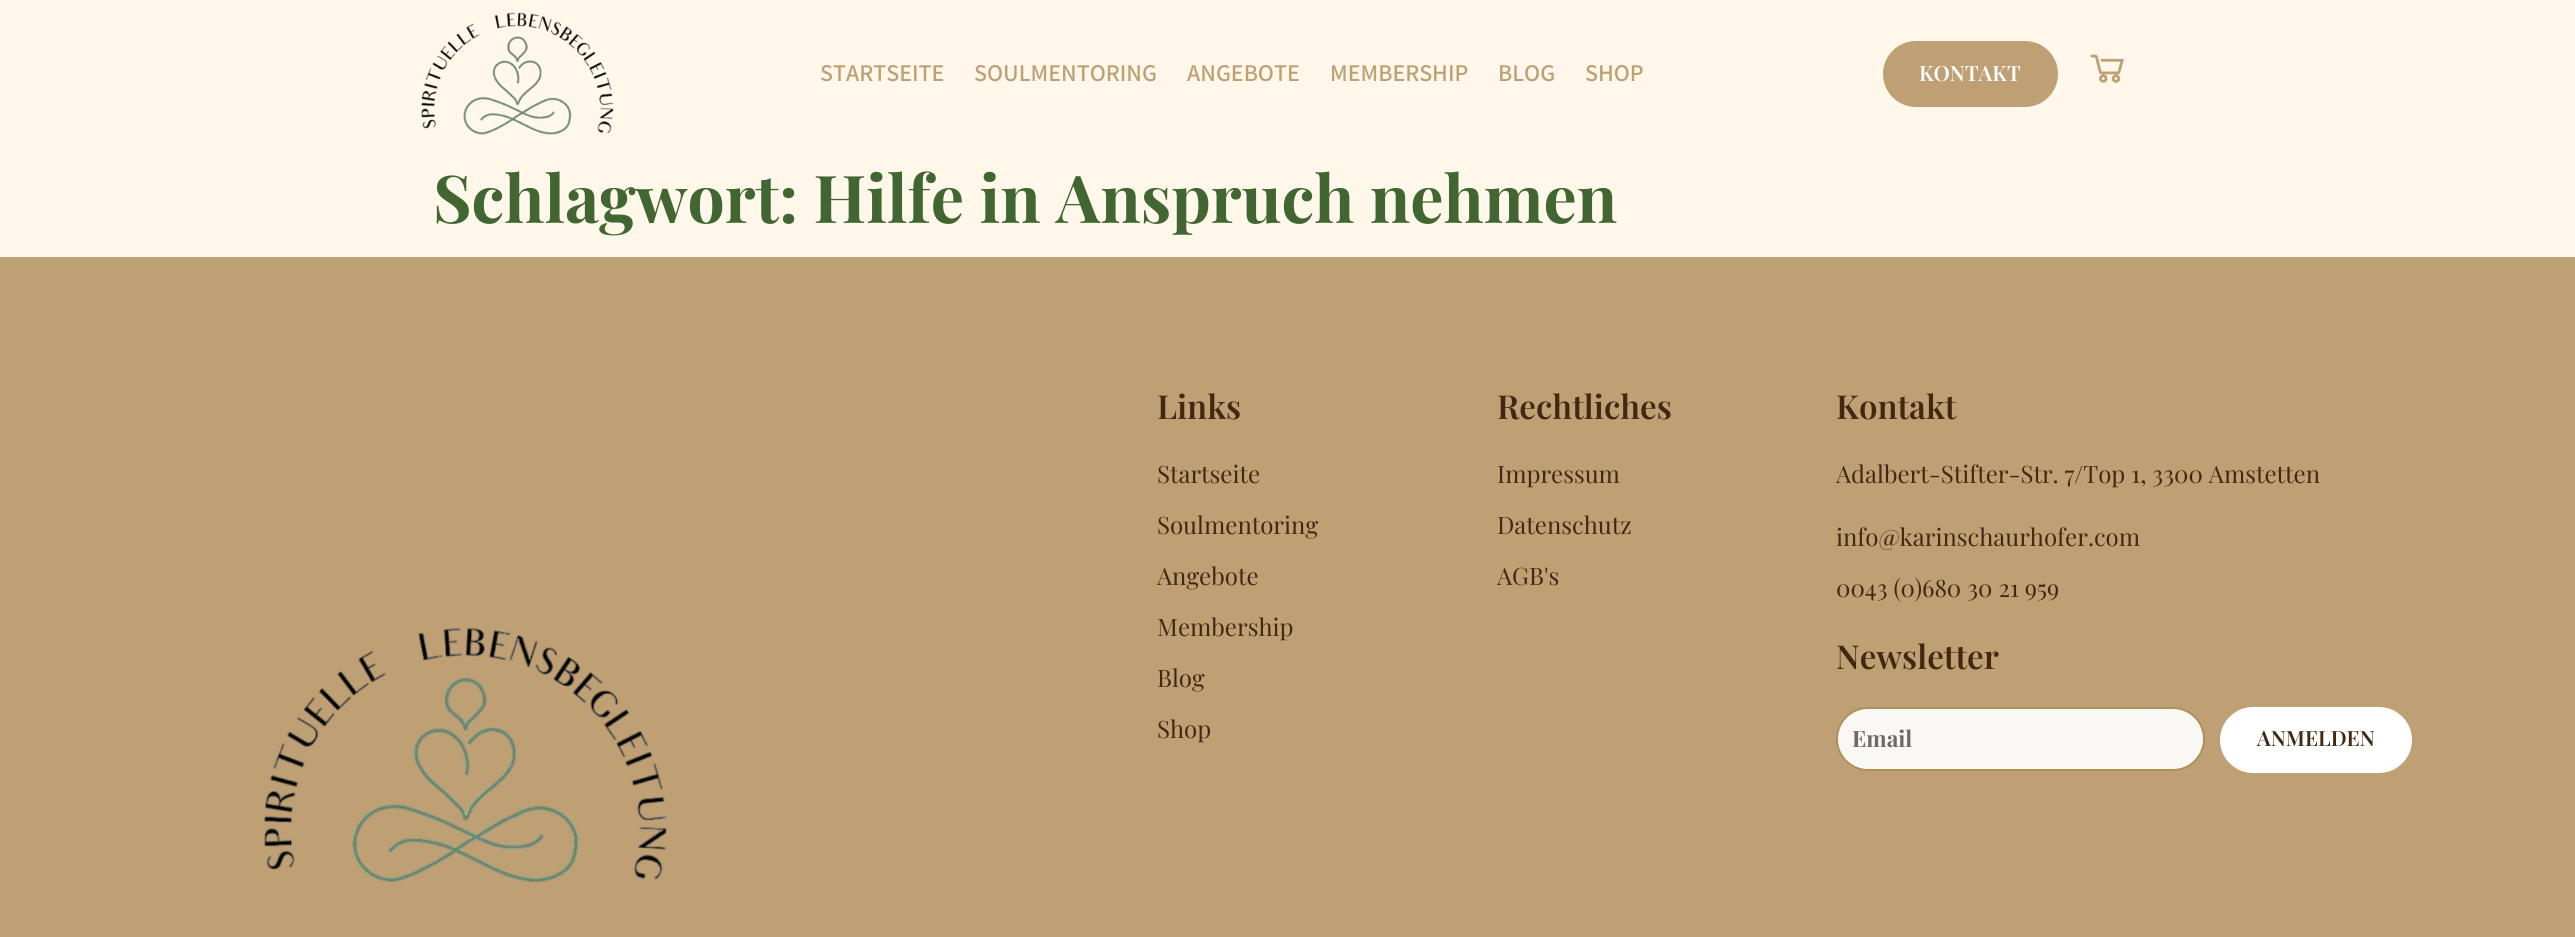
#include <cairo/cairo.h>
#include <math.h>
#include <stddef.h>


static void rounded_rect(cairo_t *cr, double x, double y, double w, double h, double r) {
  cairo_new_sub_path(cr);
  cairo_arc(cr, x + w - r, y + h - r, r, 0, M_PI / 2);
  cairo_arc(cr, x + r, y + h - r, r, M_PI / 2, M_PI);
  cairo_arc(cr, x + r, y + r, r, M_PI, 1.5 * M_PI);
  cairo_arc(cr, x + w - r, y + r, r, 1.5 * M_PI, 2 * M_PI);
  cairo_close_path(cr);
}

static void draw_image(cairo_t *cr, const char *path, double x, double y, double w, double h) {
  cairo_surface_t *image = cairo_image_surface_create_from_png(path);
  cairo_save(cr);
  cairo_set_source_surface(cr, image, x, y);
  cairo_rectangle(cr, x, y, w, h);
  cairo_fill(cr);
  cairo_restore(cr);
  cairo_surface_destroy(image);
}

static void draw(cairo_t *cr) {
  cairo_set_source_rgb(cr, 1, 248 / 255.0, 234 / 255.0);
  cairo_paint(cr);
  draw_image(cr, "images/1.png", 421, 12, 193, 123);
  cairo_set_source_rgb(cr, 190 / 255.0, 160 / 255.0, 116 / 255.0);
  rounded_rect(cr, 1883, 41, 175, 66, 33);
  cairo_fill(cr);
  draw_image(cr, "images/2.png", 2090, 54, 34, 29);
  cairo_rectangle(cr, 0, 257, 2575, 680);
  cairo_fill(cr);
  draw_image(cr, "images/3.png", 264, 627, 403, 256);
  cairo_set_source_rgb(cr, 250 / 255.0, 248 / 255.0, 245 / 255.0);
  rounded_rect(cr, 1837, 708, 367, 62, 31);
  cairo_fill_preserve(cr);
  cairo_set_source_rgb(cr, 175 / 255.0, 145 / 255.0, 86 / 255.0);
  cairo_stroke(cr);
  cairo_set_source_rgb(cr, 1, 1, 1);
  rounded_rect(cr, 2220, 707, 192, 66, 33);
  cairo_fill(cr);
  cairo_select_font_face(cr, "Assistant SemiBold", CAIRO_FONT_SLANT_NORMAL, CAIRO_FONT_WEIGHT_NORMAL);
  cairo_set_font_size(cr, 24);
  cairo_set_source_rgb(cr, 190 / 255.0, 160 / 255.0, 116 / 255.0);
  cairo_move_to(cr, 820, 81);
  cairo_show_text(cr, "STARTSEITE");
  cairo_move_to(cr, 974, 81);
  cairo_show_text(cr, "SOULMENTORING");
  cairo_move_to(cr, 1187, 81);
  cairo_show_text(cr, "ANGEBOTE");
  cairo_move_to(cr, 1330, 81);
  cairo_show_text(cr, "MEMBERSHIP");
  cairo_move_to(cr, 1498, 81);
  cairo_show_text(cr, "BLOG");
  cairo_move_to(cr, 1585, 81);
  cairo_show_text(cr, "SHOP");
  cairo_select_font_face(cr, "Playfair Display SemiBold", CAIRO_FONT_SLANT_NORMAL, CAIRO_FONT_WEIGHT_NORMAL);
  cairo_set_font_size(cr, 21);
  cairo_set_source_rgb(cr, 1, 1, 1);
  cairo_move_to(cr, 1919, 81);
  cairo_show_text(cr, "KONTAKT");
  cairo_select_font_face(cr, "Playfair Display", CAIRO_FONT_SLANT_NORMAL, CAIRO_FONT_WEIGHT_BOLD);
  cairo_set_font_size(cr, 66);
  cairo_set_source_rgb(cr, 65 / 255.0, 102 / 255.0, 50 / 255.0);
  cairo_move_to(cr, 433, 223);
  cairo_show_text(cr, "Schlagwort: Hilfe in Anspruch nehmen");
  cairo_select_font_face(cr, "Playfair Display SemiBold", CAIRO_FONT_SLANT_NORMAL, CAIRO_FONT_WEIGHT_NORMAL);
  cairo_set_font_size(cr, 33);
  cairo_set_source_rgb(cr, 65 / 255.0, 40 / 255.0, 17 / 255.0);
  cairo_move_to(cr, 1157, 419);
  cairo_show_text(cr, "Links");
  cairo_select_font_face(cr, "Playfair Display", CAIRO_FONT_SLANT_NORMAL, CAIRO_FONT_WEIGHT_NORMAL);
  cairo_set_font_size(cr, 24);
  cairo_move_to(cr, 1157, 483);
  cairo_show_text(cr, "Startseite");
  cairo_move_to(cr, 1157, 534);
  cairo_show_text(cr, "Soulmentoring");
  cairo_move_to(cr, 1157, 585);
  cairo_show_text(cr, "Angebote");
  cairo_move_to(cr, 1157, 636);
  cairo_show_text(cr, "Membership");
  cairo_move_to(cr, 1157, 687);
  cairo_show_text(cr, "Blog");
  cairo_move_to(cr, 1157, 738);
  cairo_show_text(cr, "Shop");
  cairo_select_font_face(cr, "Playfair Display SemiBold", CAIRO_FONT_SLANT_NORMAL, CAIRO_FONT_WEIGHT_NORMAL);
  cairo_set_font_size(cr, 33);
  cairo_move_to(cr, 1497, 419);
  cairo_show_text(cr, "Rechtliches");
  cairo_select_font_face(cr, "Playfair Display", CAIRO_FONT_SLANT_NORMAL, CAIRO_FONT_WEIGHT_NORMAL);
  cairo_set_font_size(cr, 24);
  cairo_move_to(cr, 1497, 483);
  cairo_show_text(cr, "Impressum");
  cairo_move_to(cr, 1497, 534);
  cairo_show_text(cr, "Datenschutz");
  cairo_move_to(cr, 1497, 585);
  cairo_show_text(cr, "AGB's");
  cairo_select_font_face(cr, "Playfair Display SemiBold", CAIRO_FONT_SLANT_NORMAL, CAIRO_FONT_WEIGHT_NORMAL);
  cairo_set_font_size(cr, 33);
  cairo_move_to(cr, 1836, 419);
  cairo_show_text(cr, "Kontakt");
  cairo_select_font_face(cr, "Playfair Display", CAIRO_FONT_SLANT_NORMAL, CAIRO_FONT_WEIGHT_NORMAL);
  cairo_set_font_size(cr, 24);
  cairo_move_to(cr, 1836, 483);
  cairo_show_text(cr, "Adalbert-Stifter-Str. 7/Top 1, 3300 Amstetten");
  cairo_move_to(cr, 1836, 546);
  cairo_show_text(cr, "info@karinschaurhofer.com");
  cairo_move_to(cr, 1836, 597);
  cairo_show_text(cr, "0043 (0)680 30 21 959");
  cairo_select_font_face(cr, "Playfair Display SemiBold", CAIRO_FONT_SLANT_NORMAL, CAIRO_FONT_WEIGHT_NORMAL);
  cairo_set_font_size(cr, 33);
  cairo_move_to(cr, 1836, 669);
  cairo_show_text(cr, "Newsletter");
  cairo_select_font_face(cr, "Playfair Display", CAIRO_FONT_SLANT_NORMAL, CAIRO_FONT_WEIGHT_BOLD);
  cairo_set_font_size(cr, 22.5);
  cairo_set_source_rgb(cr, 107 / 255.0, 106 / 255.0, 105 / 255.0);
  cairo_move_to(cr, 1852, 747);
  cairo_show_text(cr, "Email");
  cairo_select_font_face(cr, "Playfair Display SemiBold", CAIRO_FONT_SLANT_NORMAL, CAIRO_FONT_WEIGHT_NORMAL);
  cairo_set_font_size(cr, 21);
  cairo_set_source_rgb(cr, 65 / 255.0, 40 / 255.0, 17 / 255.0);
  cairo_move_to(cr, 2257, 746);
  cairo_show_text(cr, "ANMELDEN");
}

int main(void) {
  cairo_surface_t *surface = cairo_image_surface_create(CAIRO_FORMAT_RGB24, 2575, 937);
  cairo_t *cr = cairo_create(surface);
  cairo_font_options_t *options = cairo_font_options_create();
  cairo_font_options_set_hint_metrics(options, CAIRO_HINT_METRICS_OFF);
  cairo_font_options_set_hint_style(options, CAIRO_HINT_STYLE_NONE);
  cairo_set_font_options(cr, options);
  cairo_set_miter_limit(cr, 4);
  draw(cr);
  cairo_surface_write_to_png(surface, "out.png");
  cairo_font_options_destroy(options);
  cairo_destroy(cr);
  cairo_surface_destroy(surface);
  return 0;
}
